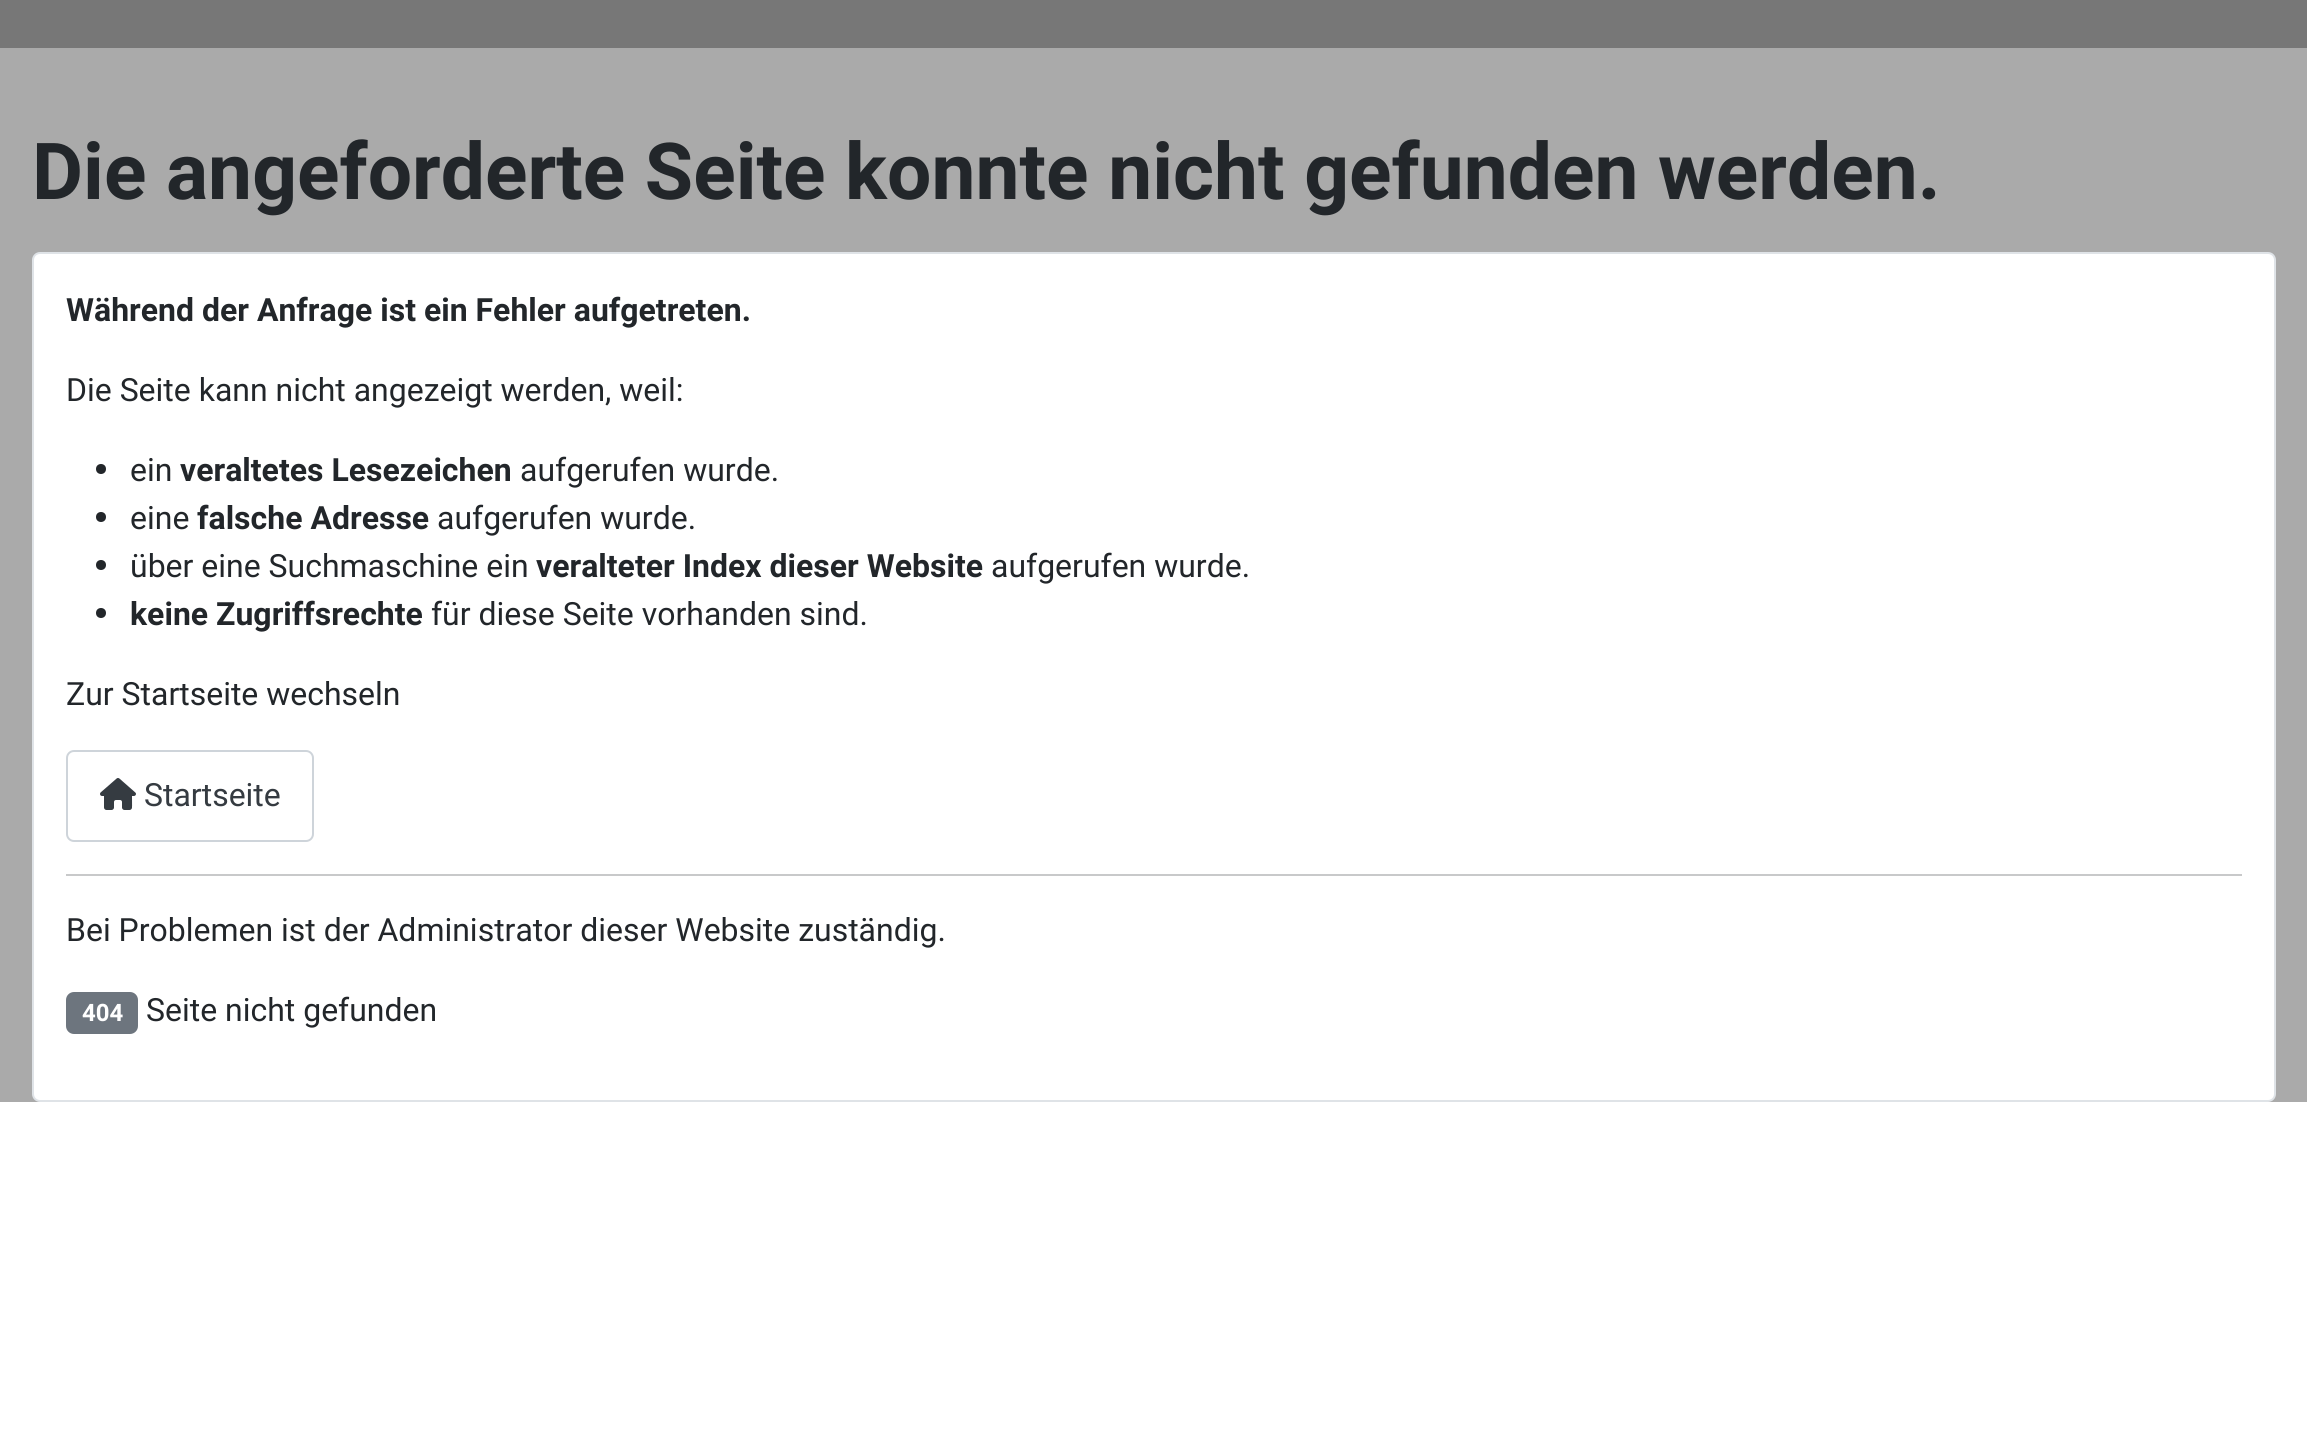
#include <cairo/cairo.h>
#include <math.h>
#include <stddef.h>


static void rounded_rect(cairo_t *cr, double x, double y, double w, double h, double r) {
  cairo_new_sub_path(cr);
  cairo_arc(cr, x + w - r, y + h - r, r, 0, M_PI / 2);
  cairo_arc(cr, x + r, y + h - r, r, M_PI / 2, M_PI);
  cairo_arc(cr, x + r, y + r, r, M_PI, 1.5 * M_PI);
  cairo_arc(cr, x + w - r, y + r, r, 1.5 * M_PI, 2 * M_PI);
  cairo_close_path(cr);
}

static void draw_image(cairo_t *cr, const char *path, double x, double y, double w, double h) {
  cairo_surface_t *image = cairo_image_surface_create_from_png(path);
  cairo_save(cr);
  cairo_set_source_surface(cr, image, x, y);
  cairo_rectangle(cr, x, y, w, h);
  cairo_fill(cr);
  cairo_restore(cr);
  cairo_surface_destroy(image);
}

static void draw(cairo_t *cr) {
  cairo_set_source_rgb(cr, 1, 1, 1);
  cairo_paint(cr);
  cairo_set_source_rgb(cr, 119 / 255.0, 119 / 255.0, 119 / 255.0);
  cairo_rectangle(cr, 0, 0, 2307, 48);
  cairo_fill(cr);
  cairo_set_source_rgb(cr, 170 / 255.0, 170 / 255.0, 170 / 255.0);
  cairo_rectangle(cr, 0, 48, 2307, 1054);
  cairo_fill(cr);
  cairo_set_source_rgb(cr, 1, 1, 1);
  rounded_rect(cr, 33, 253, 2242, 848, 7);
  cairo_fill_preserve(cr);
  cairo_set_source_rgb(cr, 223 / 255.0, 227 / 255.0, 231 / 255.0);
  cairo_stroke(cr);
  cairo_set_source_rgb(cr, 34 / 255.0, 38 / 255.0, 42 / 255.0);
  cairo_arc(cr, 101, 469, 5, 0, 2 * M_PI);
  cairo_fill(cr);
  cairo_arc(cr, 101, 517, 5, 0, 2 * M_PI);
  cairo_fill(cr);
  cairo_arc(cr, 101, 565, 5, 0, 2 * M_PI);
  cairo_fill(cr);
  cairo_arc(cr, 101, 613, 5, 0, 2 * M_PI);
  cairo_fill(cr);
  rounded_rect(cr, 67, 751, 246, 90, 7);
  cairo_set_source_rgb(cr, 206 / 255.0, 212 / 255.0, 218 / 255.0);
  cairo_stroke(cr);
  draw_image(cr, "images/1.png", 100, 778, 36, 32);
  cairo_set_source_rgb(cr, 200 / 255.0, 201 / 255.0, 202 / 255.0);
  cairo_rectangle(cr, 66, 874, 2176, 2);
  cairo_fill(cr);
  cairo_set_source_rgb(cr, 109 / 255.0, 117 / 255.0, 126 / 255.0);
  rounded_rect(cr, 66, 992, 72, 42, 8);
  cairo_fill(cr);
  cairo_select_font_face(cr, "Roboto", CAIRO_FONT_SLANT_NORMAL, CAIRO_FONT_WEIGHT_BOLD);
  cairo_set_font_size(cr, 78.6);
  cairo_set_source_rgb(cr, 34 / 255.0, 38 / 255.0, 42 / 255.0);
  cairo_move_to(cr, 32, 199);
  cairo_show_text(cr, "Die angeforderte Seite konnte nicht gefunden werden.");
  cairo_set_font_size(cr, 32);
  cairo_move_to(cr, 66, 321);
  cairo_show_text(cr, "Während der Anfrage ist ein Fehler aufgetreten.");
  cairo_select_font_face(cr, "Roboto", CAIRO_FONT_SLANT_NORMAL, CAIRO_FONT_WEIGHT_NORMAL);
  cairo_move_to(cr, 66, 401);
  cairo_show_text(cr, "Die Seite kann nicht angezeigt werden, weil:");
  cairo_move_to(cr, 130, 481);
  cairo_show_text(cr, "ein");
  cairo_select_font_face(cr, "Roboto", CAIRO_FONT_SLANT_NORMAL, CAIRO_FONT_WEIGHT_BOLD);
  cairo_move_to(cr, 180, 481);
  cairo_show_text(cr, "veraltetes Lesezeichen");
  cairo_select_font_face(cr, "Roboto", CAIRO_FONT_SLANT_NORMAL, CAIRO_FONT_WEIGHT_NORMAL);
  cairo_move_to(cr, 520, 481);
  cairo_show_text(cr, "aufgerufen wurde.");
  cairo_move_to(cr, 130, 529);
  cairo_show_text(cr, "eine");
  cairo_select_font_face(cr, "Roboto", CAIRO_FONT_SLANT_NORMAL, CAIRO_FONT_WEIGHT_BOLD);
  cairo_move_to(cr, 197, 529);
  cairo_show_text(cr, "falsche Adresse");
  cairo_select_font_face(cr, "Roboto", CAIRO_FONT_SLANT_NORMAL, CAIRO_FONT_WEIGHT_NORMAL);
  cairo_move_to(cr, 437, 529);
  cairo_show_text(cr, "aufgerufen wurde.");
  cairo_move_to(cr, 130, 577);
  cairo_show_text(cr, "über eine Suchmaschine ein");
  cairo_select_font_face(cr, "Roboto", CAIRO_FONT_SLANT_NORMAL, CAIRO_FONT_WEIGHT_BOLD);
  cairo_move_to(cr, 536, 577);
  cairo_show_text(cr, "veralteter Index dieser Website");
  cairo_select_font_face(cr, "Roboto", CAIRO_FONT_SLANT_NORMAL, CAIRO_FONT_WEIGHT_NORMAL);
  cairo_move_to(cr, 991, 577);
  cairo_show_text(cr, "aufgerufen wurde.");
  cairo_select_font_face(cr, "Roboto", CAIRO_FONT_SLANT_NORMAL, CAIRO_FONT_WEIGHT_BOLD);
  cairo_move_to(cr, 130, 625);
  cairo_show_text(cr, "keine Zugriffsrechte");
  cairo_select_font_face(cr, "Roboto", CAIRO_FONT_SLANT_NORMAL, CAIRO_FONT_WEIGHT_NORMAL);
  cairo_move_to(cr, 431, 625);
  cairo_show_text(cr, "für diese Seite vorhanden sind.");
  cairo_move_to(cr, 66, 705);
  cairo_show_text(cr, "Zur Startseite wechseln");
  cairo_set_source_rgb(cr, 53 / 255.0, 59 / 255.0, 65 / 255.0);
  cairo_move_to(cr, 144, 806);
  cairo_show_text(cr, "Startseite");
  cairo_set_source_rgb(cr, 34 / 255.0, 38 / 255.0, 42 / 255.0);
  cairo_move_to(cr, 66, 941);
  cairo_show_text(cr, "Bei Problemen ist der Administrator dieser Website zuständig.");
  cairo_select_font_face(cr, "Roboto", CAIRO_FONT_SLANT_NORMAL, CAIRO_FONT_WEIGHT_BOLD);
  cairo_set_font_size(cr, 24);
  cairo_set_source_rgb(cr, 1, 1, 1);
  cairo_move_to(cr, 82, 1021);
  cairo_show_text(cr, "404");
  cairo_select_font_face(cr, "Roboto", CAIRO_FONT_SLANT_NORMAL, CAIRO_FONT_WEIGHT_NORMAL);
  cairo_set_font_size(cr, 32);
  cairo_set_source_rgb(cr, 34 / 255.0, 38 / 255.0, 42 / 255.0);
  cairo_move_to(cr, 146, 1021);
  cairo_show_text(cr, "Seite nicht gefunden");
}

int main(void) {
  cairo_surface_t *surface = cairo_image_surface_create(CAIRO_FORMAT_RGB24, 2307, 1434);
  cairo_t *cr = cairo_create(surface);
  cairo_font_options_t *options = cairo_font_options_create();
  cairo_font_options_set_hint_metrics(options, CAIRO_HINT_METRICS_OFF);
  cairo_font_options_set_hint_style(options, CAIRO_HINT_STYLE_NONE);
  cairo_set_font_options(cr, options);
  cairo_set_miter_limit(cr, 4);
  draw(cr);
  cairo_surface_write_to_png(surface, "out.png");
  cairo_font_options_destroy(options);
  cairo_destroy(cr);
  cairo_surface_destroy(surface);
  return 0;
}
